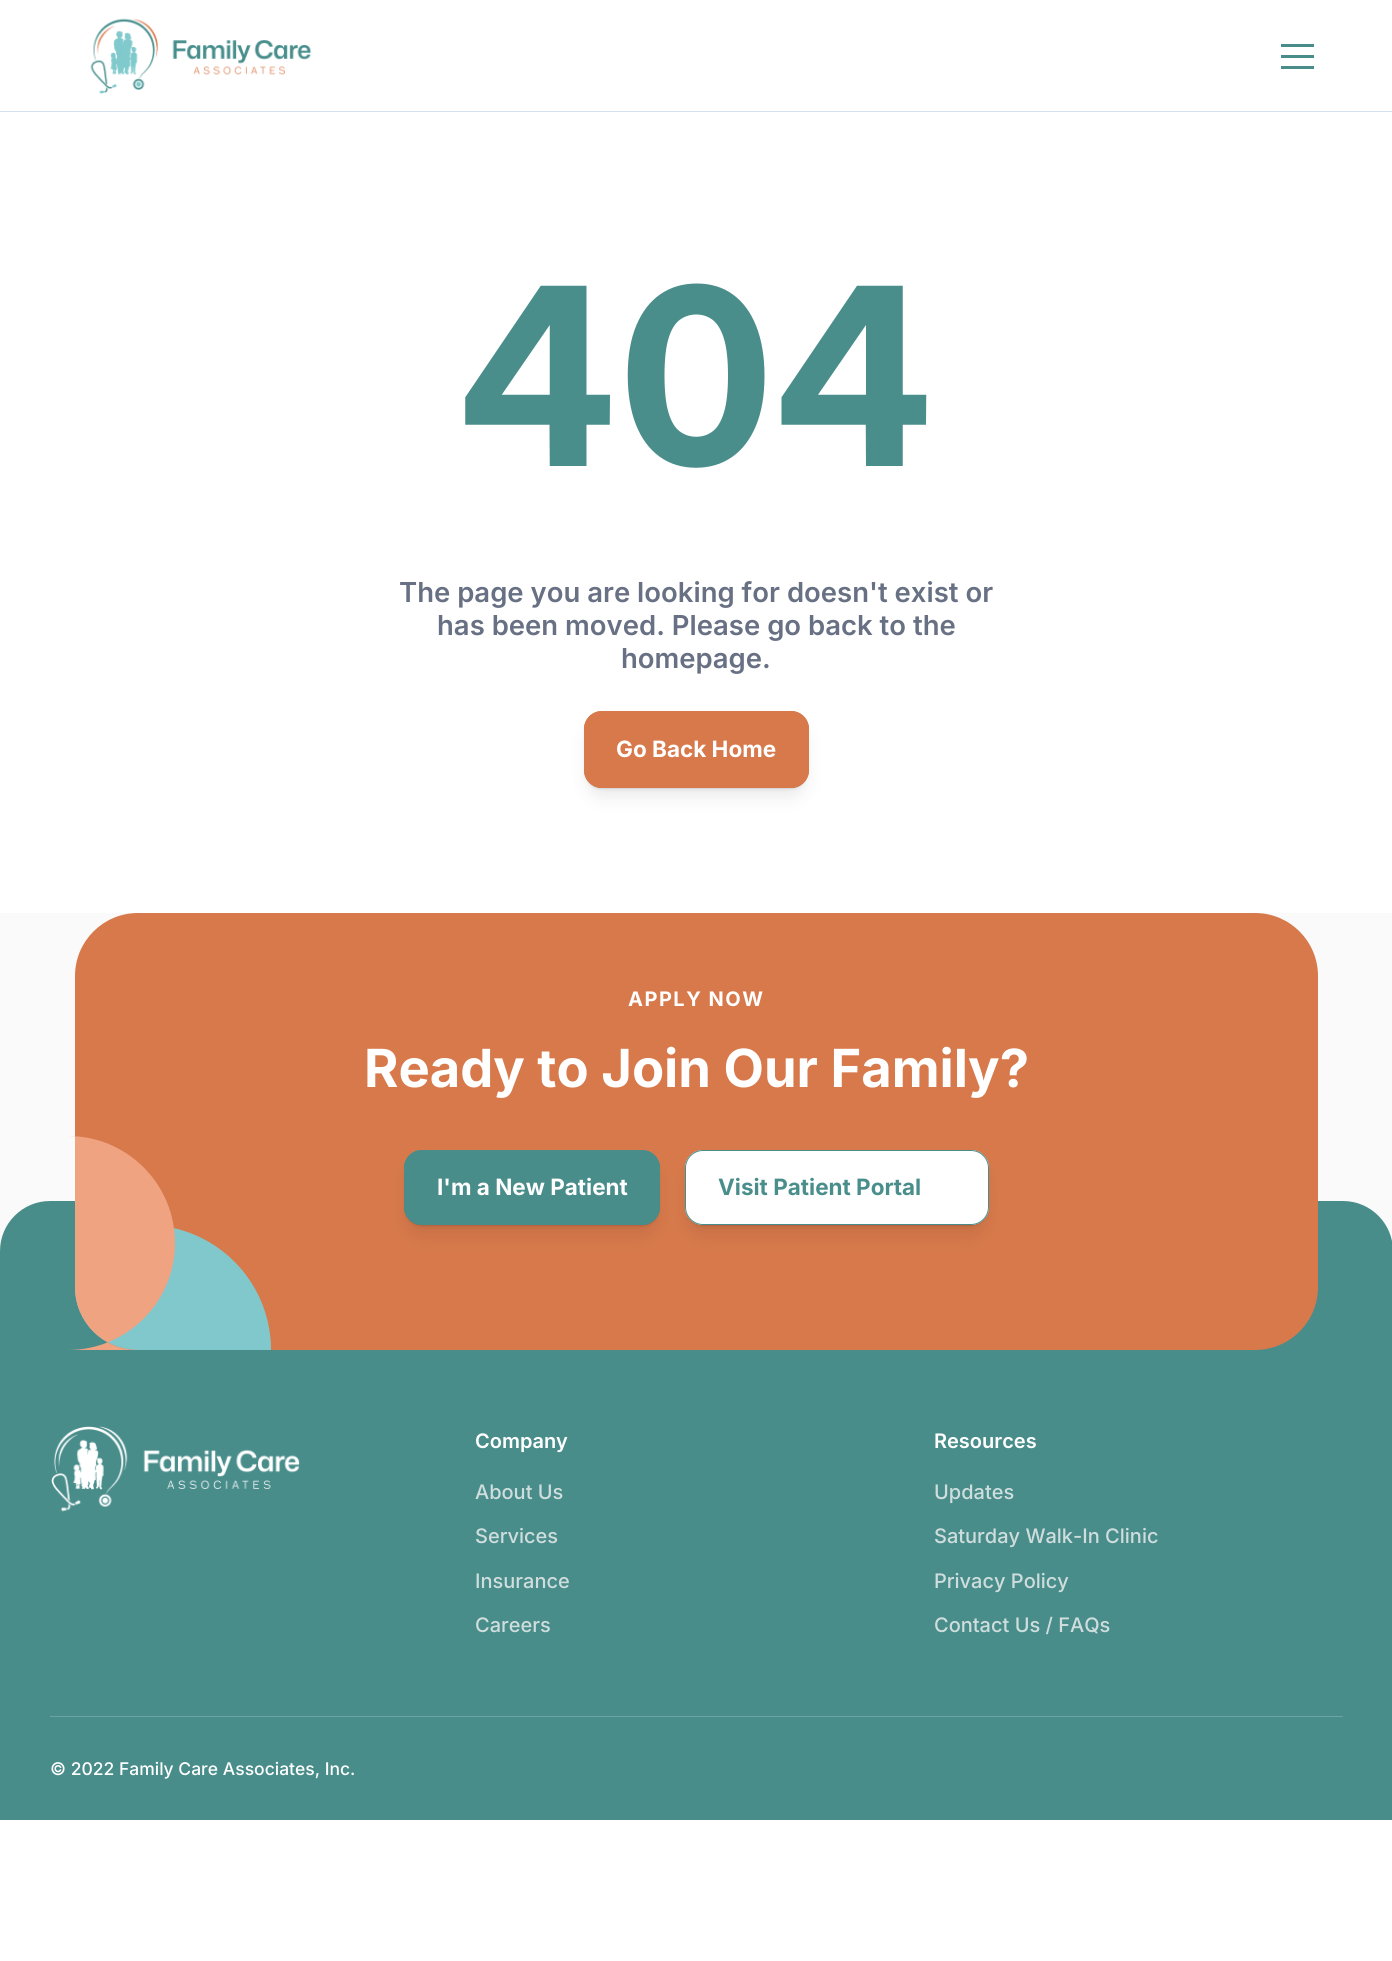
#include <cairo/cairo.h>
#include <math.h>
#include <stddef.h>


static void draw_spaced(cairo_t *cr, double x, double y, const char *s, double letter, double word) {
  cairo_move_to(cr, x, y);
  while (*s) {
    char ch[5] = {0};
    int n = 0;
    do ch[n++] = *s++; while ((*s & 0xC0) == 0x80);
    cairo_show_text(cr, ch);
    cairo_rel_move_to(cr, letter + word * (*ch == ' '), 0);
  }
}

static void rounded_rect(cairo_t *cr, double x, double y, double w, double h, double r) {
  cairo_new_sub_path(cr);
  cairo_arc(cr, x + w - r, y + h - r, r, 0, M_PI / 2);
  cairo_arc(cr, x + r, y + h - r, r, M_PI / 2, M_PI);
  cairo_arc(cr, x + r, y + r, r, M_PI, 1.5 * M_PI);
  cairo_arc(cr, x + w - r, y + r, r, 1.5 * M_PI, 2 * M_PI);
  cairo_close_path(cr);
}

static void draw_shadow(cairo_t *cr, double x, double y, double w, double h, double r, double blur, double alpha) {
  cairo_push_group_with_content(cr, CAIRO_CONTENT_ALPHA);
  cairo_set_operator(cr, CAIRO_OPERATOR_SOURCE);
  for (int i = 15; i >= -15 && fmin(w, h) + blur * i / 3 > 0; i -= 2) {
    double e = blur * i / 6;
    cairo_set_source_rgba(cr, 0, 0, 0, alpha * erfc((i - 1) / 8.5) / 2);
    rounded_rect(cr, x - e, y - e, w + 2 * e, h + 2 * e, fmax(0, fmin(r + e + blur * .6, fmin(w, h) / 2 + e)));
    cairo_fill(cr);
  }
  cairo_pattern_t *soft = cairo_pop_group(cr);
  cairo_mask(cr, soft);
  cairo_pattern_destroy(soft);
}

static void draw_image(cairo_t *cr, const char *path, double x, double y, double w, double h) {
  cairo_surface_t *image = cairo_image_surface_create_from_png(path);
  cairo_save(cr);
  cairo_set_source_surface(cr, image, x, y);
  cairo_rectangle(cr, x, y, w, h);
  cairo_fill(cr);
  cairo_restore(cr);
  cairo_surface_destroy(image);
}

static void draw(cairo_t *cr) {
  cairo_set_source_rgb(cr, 1, 1, 1);
  cairo_paint(cr);
  draw_image(cr, "images/1.png", 90, 18, 222, 76);
  cairo_set_source_rgb(cr, 73 / 255.0, 141 / 255.0, 139 / 255.0);
  cairo_rectangle(cr, 1281, 44, 33, 3);
  cairo_fill(cr);
  cairo_rectangle(cr, 1281, 55, 33, 3);
  cairo_fill(cr);
  cairo_rectangle(cr, 1281, 66, 33, 3);
  cairo_fill(cr);
  cairo_set_source_rgb(cr, 213 / 255.0, 223 / 255.0, 240 / 255.0);
  cairo_rectangle(cr, 0, 111, 1392, 1);
  cairo_fill(cr);
  cairo_set_source_rgb(cr, 0, 0, 0);
  draw_shadow(cr, 588, 728, 217, 68, 14, 9, 0.09);
  draw_shadow(cr, 586, 716, 220, 72, 15, 2, 0.14);
  draw_shadow(cr, 585, 714, 223, 74, 16, 0.5, 0.16);
  cairo_set_source_rgb(cr, 215 / 255.0, 121 / 255.0, 75 / 255.0);
  rounded_rect(cr, 584, 711, 225, 77, 18);
  cairo_fill(cr);
  rounded_rect(cr, 584.5, 711.5, 224, 76, 17.5);
  cairo_set_line_width(cr, 1);
  cairo_stroke(cr);
  cairo_set_source_rgb(cr, 250 / 255.0, 250 / 255.0, 250 / 255.0);
  cairo_rectangle(cr, 0, 913, 1392, 338);
  cairo_fill(cr);
  cairo_set_source_rgb(cr, 73 / 255.0, 141 / 255.0, 139 / 255.0);
  cairo_new_path(cr);
  cairo_move_to(cr, 50, 1201);
  cairo_line_to(cr, 1343, 1201);
  cairo_curve_to(cr, 1370.5, 1201, 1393, 1223.5, 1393, 1251);
  cairo_line_to(cr, 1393, 1350);
  cairo_line_to(cr, 0, 1350);
  cairo_line_to(cr, 0, 1251);
  cairo_curve_to(cr, 0, 1223.5, 22.5, 1201, 50, 1201);
  cairo_close_path(cr);
  cairo_fill(cr);
  cairo_set_source_rgb(cr, 215 / 255.0, 121 / 255.0, 75 / 255.0);
  rounded_rect(cr, 75, 913, 1243, 437, 63);
  cairo_fill(cr);
  cairo_set_source_rgb(cr, 0, 0, 0);
  draw_shadow(cr, 408, 1166, 248, 68, 14, 9, 0.09);
  draw_shadow(cr, 406, 1155, 252, 70, 15, 2, 0.14);
  draw_shadow(cr, 405, 1153, 254, 72, 16, 0.5, 0.16);
  cairo_set_source_rgb(cr, 73 / 255.0, 141 / 255.0, 139 / 255.0);
  rounded_rect(cr, 404, 1150, 256, 75, 18);
  cairo_fill(cr);
  rounded_rect(cr, 404.5, 1150.5, 255, 74, 17.5);
  cairo_stroke(cr);
  cairo_set_source_rgb(cr, 0, 0, 0);
  draw_shadow(cr, 689, 1166, 296, 68, 14, 9, 0.09);
  draw_shadow(cr, 688, 1155, 298, 70, 15, 2, 0.14);
  draw_shadow(cr, 686, 1153, 302, 72, 16, 0.5, 0.16);
  cairo_set_source_rgb(cr, 1, 1, 1);
  rounded_rect(cr, 685, 1150, 304, 75, 18);
  cairo_fill(cr);
  rounded_rect(cr, 685.5, 1150.5, 303, 74, 17.5);
  cairo_set_source_rgb(cr, 73 / 255.0, 141 / 255.0, 139 / 255.0);
  cairo_stroke(cr);
  cairo_set_source_rgb(cr, 129 / 255.0, 200 / 255.0, 204 / 255.0);
  cairo_new_path(cr);
  cairo_move_to(cr, 75, 1225);
  cairo_line_to(cr, 146, 1225);
  cairo_curve_to(cr, 215, 1225, 271, 1281, 271, 1350);
  cairo_line_to(cr, 138, 1350);
  cairo_curve_to(cr, 103, 1350, 75, 1322, 75, 1287);
  cairo_close_path(cr);
  cairo_fill(cr);
  cairo_set_source_rgb(cr, 239 / 255.0, 163 / 255.0, 129 / 255.0);
  cairo_new_path(cr);
  cairo_move_to(cr, 75, 1136);
  cairo_line_to(cr, 68, 1136);
  cairo_curve_to(cr, 127, 1136, 175, 1184, 175, 1243);
  cairo_curve_to(cr, 175, 1302, 127, 1350, 68, 1350);
  cairo_line_to(cr, 138, 1350);
  cairo_curve_to(cr, 103, 1350, 75, 1322, 75, 1287);
  cairo_close_path(cr);
  cairo_fill(cr);
  cairo_set_source_rgb(cr, 73 / 255.0, 141 / 255.0, 139 / 255.0);
  cairo_rectangle(cr, 0, 1350, 1392, 470);
  cairo_fill(cr);
  draw_image(cr, "images/2.png", 51, 1426, 249, 86);
  cairo_set_source_rgb(cr, 109 / 255.0, 164 / 255.0, 162 / 255.0);
  cairo_rectangle(cr, 50, 1716, 1293, 1);
  cairo_fill(cr);
  cairo_select_font_face(cr, "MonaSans", CAIRO_FONT_SLANT_NORMAL, CAIRO_FONT_WEIGHT_BOLD);
  cairo_set_font_size(cr, 250);
  cairo_set_source_rgb(cr, 74 / 255.0, 142 / 255.0, 140 / 255.0);
  cairo_move_to(cr, 456, 466);
  cairo_show_text(cr, "404");
  cairo_select_font_face(cr, "Inter SemiBold", CAIRO_FONT_SLANT_NORMAL, CAIRO_FONT_WEIGHT_NORMAL);
  cairo_set_font_size(cr, 27.5);
  cairo_set_source_rgb(cr, 104 / 255.0, 112 / 255.0, 132 / 255.0);
  cairo_move_to(cr, 399, 602);
  cairo_show_text(cr, "The page you are looking for doesn't exist or");
  cairo_move_to(cr, 437, 635);
  cairo_show_text(cr, "has been moved. Please go back to the");
  cairo_move_to(cr, 621, 668);
  cairo_show_text(cr, "homepage.");
  cairo_select_font_face(cr, "Inter", CAIRO_FONT_SLANT_NORMAL, CAIRO_FONT_WEIGHT_BOLD);
  cairo_set_font_size(cr, 22.5);
  cairo_set_source_rgb(cr, 1, 1, 1);
  cairo_move_to(cr, 616, 757);
  cairo_show_text(cr, "Go Back Home");
  cairo_set_font_size(cr, 20);
  draw_spaced(cr, 628, 1006, "APPLY NOW", 1.5, 0);
  cairo_set_font_size(cr, 52.5);
  cairo_move_to(cr, 364, 1087);
  cairo_show_text(cr, "Ready to Join Our Family?");
  cairo_set_font_size(cr, 22.5);
  cairo_move_to(cr, 437, 1195);
  cairo_show_text(cr, "I'm a New Patient");
  cairo_set_source_rgb(cr, 74 / 255.0, 142 / 255.0, 140 / 255.0);
  cairo_move_to(cr, 718, 1195);
  cairo_show_text(cr, "Visit Patient Portal");
  cairo_select_font_face(cr, "Inter SemiBold", CAIRO_FONT_SLANT_NORMAL, CAIRO_FONT_WEIGHT_NORMAL);
  cairo_set_font_size(cr, 20);
  cairo_set_source_rgb(cr, 1, 1, 1);
  cairo_move_to(cr, 475, 1448);
  cairo_show_text(cr, "Company");
  cairo_select_font_face(cr, "Inter Medium", CAIRO_FONT_SLANT_NORMAL, CAIRO_FONT_WEIGHT_NORMAL);
  cairo_set_source_rgb(cr, 207 / 255.0, 222 / 255.0, 221 / 255.0);
  cairo_move_to(cr, 475, 1499);
  cairo_show_text(cr, "About Us");
  cairo_move_to(cr, 475, 1543);
  cairo_show_text(cr, "Services");
  cairo_move_to(cr, 475, 1588);
  cairo_show_text(cr, "Insurance");
  cairo_move_to(cr, 475, 1632);
  cairo_show_text(cr, "Careers");
  cairo_select_font_face(cr, "Inter SemiBold", CAIRO_FONT_SLANT_NORMAL, CAIRO_FONT_WEIGHT_NORMAL);
  cairo_set_source_rgb(cr, 1, 1, 1);
  cairo_move_to(cr, 934, 1448);
  cairo_show_text(cr, "Resources");
  cairo_select_font_face(cr, "Inter Medium", CAIRO_FONT_SLANT_NORMAL, CAIRO_FONT_WEIGHT_NORMAL);
  cairo_set_source_rgb(cr, 207 / 255.0, 222 / 255.0, 221 / 255.0);
  cairo_move_to(cr, 934, 1499);
  cairo_show_text(cr, "Updates");
  cairo_move_to(cr, 934, 1543);
  cairo_show_text(cr, "Saturday Walk-In Clinic");
  cairo_move_to(cr, 934, 1588);
  cairo_show_text(cr, "Privacy Policy");
  cairo_move_to(cr, 934, 1632);
  cairo_show_text(cr, "Contact Us / FAQs");
  cairo_set_font_size(cr, 17.5);
  cairo_set_source_rgb(cr, 1, 1, 1);
  cairo_move_to(cr, 50, 1775);
  cairo_show_text(cr, "© 2022 Family Care Associates, Inc.");
}

int main(void) {
  cairo_surface_t *surface = cairo_image_surface_create(CAIRO_FORMAT_RGB24, 1392, 1961);
  cairo_t *cr = cairo_create(surface);
  cairo_font_options_t *options = cairo_font_options_create();
  cairo_font_options_set_hint_metrics(options, CAIRO_HINT_METRICS_OFF);
  cairo_font_options_set_hint_style(options, CAIRO_HINT_STYLE_NONE);
  cairo_set_font_options(cr, options);
  cairo_set_miter_limit(cr, 4);
  draw(cr);
  cairo_surface_write_to_png(surface, "out.png");
  cairo_font_options_destroy(options);
  cairo_destroy(cr);
  cairo_surface_destroy(surface);
  return 0;
}
